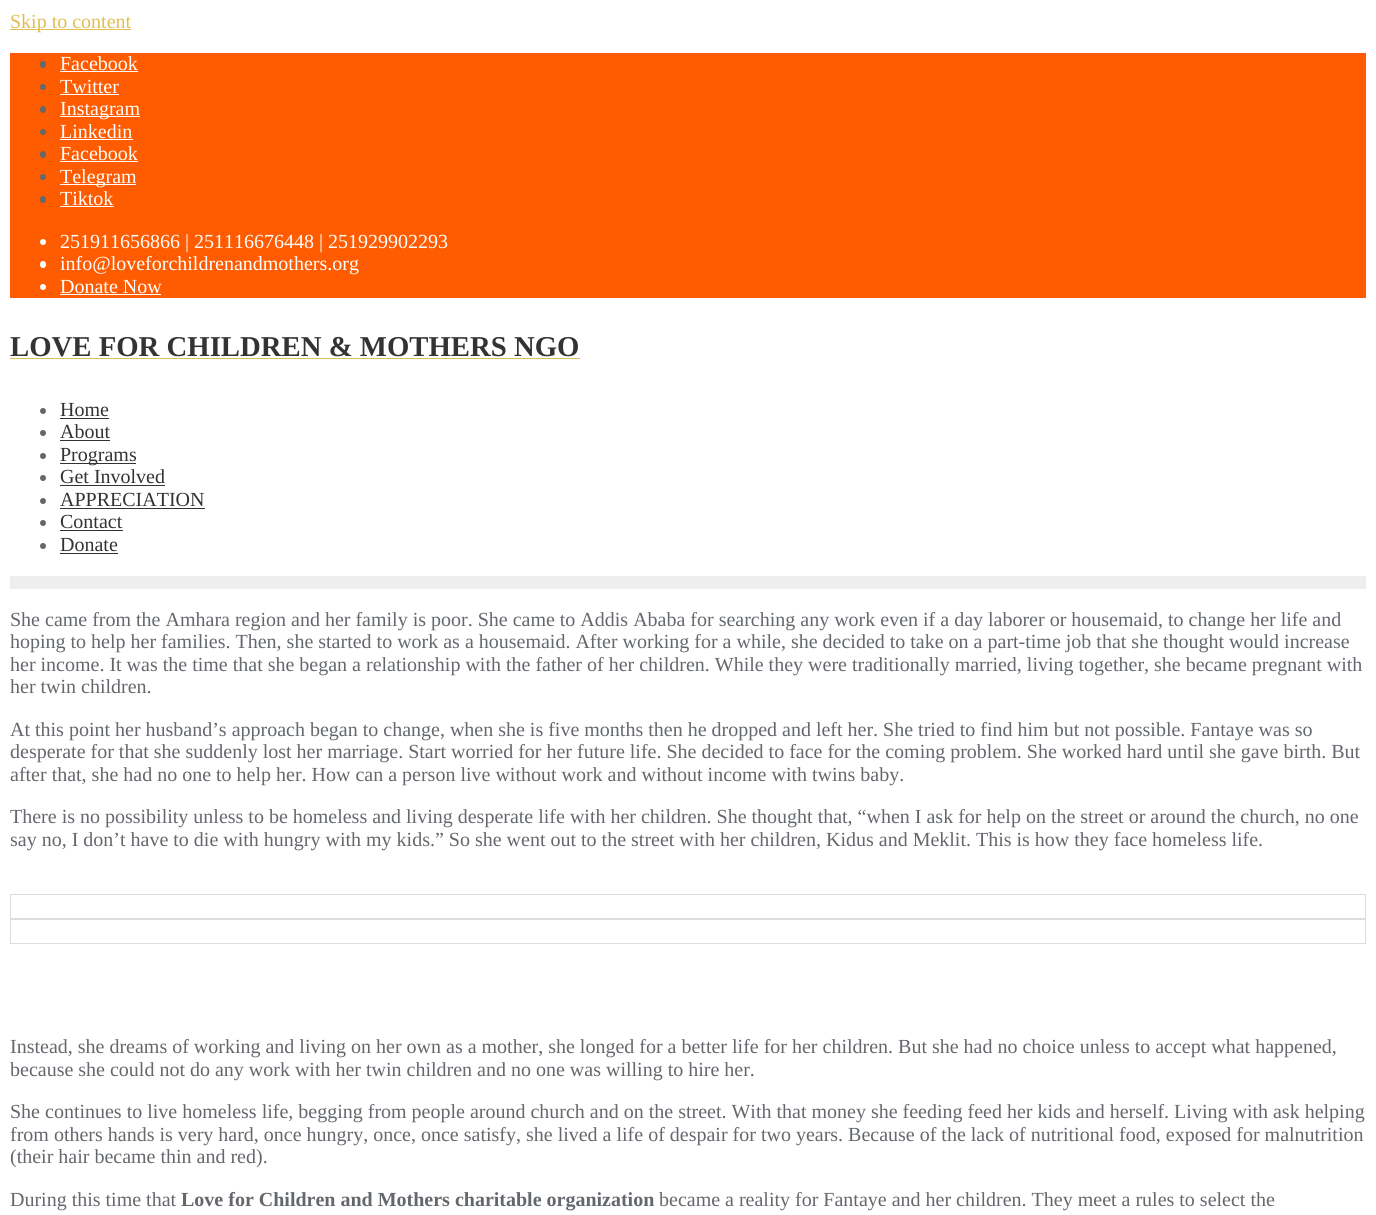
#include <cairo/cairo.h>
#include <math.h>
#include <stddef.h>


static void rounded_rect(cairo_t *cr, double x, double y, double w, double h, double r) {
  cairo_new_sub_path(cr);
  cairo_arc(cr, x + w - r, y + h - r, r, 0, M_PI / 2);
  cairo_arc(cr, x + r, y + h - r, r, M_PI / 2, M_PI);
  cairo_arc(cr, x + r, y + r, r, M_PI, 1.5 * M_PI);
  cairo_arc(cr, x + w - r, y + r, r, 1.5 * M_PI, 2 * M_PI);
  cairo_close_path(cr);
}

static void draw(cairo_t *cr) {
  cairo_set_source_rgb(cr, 1, 1, 1);
  cairo_paint(cr);
  cairo_set_source_rgb(cr, 238 / 255.0, 238 / 255.0, 238 / 255.0);
  cairo_rectangle(cr, 10, 576, 1356, 13);
  cairo_fill(cr);
  cairo_set_source_rgb(cr, 224 / 255.0, 190 / 255.0, 83 / 255.0);
  cairo_rectangle(cr, 10, 29, 121, 1);
  cairo_fill(cr);
  cairo_set_source_rgb(cr, 1, 91 / 255.0, 0);
  cairo_rectangle(cr, 10, 53, 1356, 245);
  cairo_fill(cr);
  cairo_set_source_rgb(cr, 100 / 255.0, 104 / 255.0, 109 / 255.0);
  rounded_rect(cr, 40, 61, 6, 7, 3);
  cairo_fill(cr);
  cairo_set_source_rgb(cr, 1, 1, 1);
  cairo_rectangle(cr, 60, 71, 78, 1);
  cairo_fill(cr);
  cairo_set_source_rgb(cr, 100 / 255.0, 104 / 255.0, 109 / 255.0);
  cairo_arc(cr, 43, 87, 3, 0, 2 * M_PI);
  cairo_fill(cr);
  cairo_set_source_rgb(cr, 1, 1, 1);
  cairo_rectangle(cr, 60, 94, 59, 1);
  cairo_fill(cr);
  cairo_set_source_rgb(cr, 100 / 255.0, 104 / 255.0, 109 / 255.0);
  rounded_rect(cr, 40, 106, 6, 7, 3);
  cairo_fill(cr);
  cairo_set_source_rgb(cr, 1, 1, 1);
  cairo_rectangle(cr, 60, 116, 80, 1);
  cairo_fill(cr);
  cairo_set_source_rgb(cr, 100 / 255.0, 104 / 255.0, 109 / 255.0);
  cairo_arc(cr, 43, 132, 3, 0, 2 * M_PI);
  cairo_fill(cr);
  cairo_set_source_rgb(cr, 1, 1, 1);
  cairo_rectangle(cr, 60, 139, 73, 1);
  cairo_fill(cr);
  cairo_set_source_rgb(cr, 100 / 255.0, 104 / 255.0, 109 / 255.0);
  rounded_rect(cr, 40, 151, 6, 7, 3);
  cairo_fill(cr);
  cairo_set_source_rgb(cr, 1, 1, 1);
  cairo_rectangle(cr, 60, 161, 78, 1);
  cairo_fill(cr);
  cairo_set_source_rgb(cr, 100 / 255.0, 104 / 255.0, 109 / 255.0);
  cairo_arc(cr, 43, 177, 3, 0, 2 * M_PI);
  cairo_fill(cr);
  cairo_set_source_rgb(cr, 1, 1, 1);
  cairo_rectangle(cr, 60, 184, 76, 1);
  cairo_fill(cr);
  cairo_set_source_rgb(cr, 100 / 255.0, 104 / 255.0, 109 / 255.0);
  rounded_rect(cr, 40, 196, 6, 7, 3);
  cairo_fill(cr);
  cairo_set_source_rgb(cr, 1, 1, 1);
  cairo_rectangle(cr, 60, 206, 54, 1);
  cairo_fill(cr);
  cairo_arc(cr, 43, 242, 3, 0, 2 * M_PI);
  cairo_fill(cr);
  rounded_rect(cr, 40, 261, 6, 7, 3);
  cairo_fill(cr);
  cairo_arc(cr, 43, 287, 3, 0, 2 * M_PI);
  cairo_fill(cr);
  cairo_rectangle(cr, 60, 294, 101, 1);
  cairo_fill(cr);
  cairo_set_source_rgb(cr, 224 / 255.0, 190 / 255.0, 83 / 255.0);
  cairo_rectangle(cr, 10, 358, 570, 1);
  cairo_fill(cr);
  cairo_set_source_rgb(cr, 100 / 255.0, 104 / 255.0, 109 / 255.0);
  cairo_arc(cr, 43, 411, 3, 0, 2 * M_PI);
  cairo_fill(cr);
  cairo_set_source_rgb(cr, 51 / 255.0, 51 / 255.0, 51 / 255.0);
  cairo_rectangle(cr, 60, 418, 49, 1);
  cairo_fill(cr);
  cairo_set_source_rgb(cr, 100 / 255.0, 104 / 255.0, 109 / 255.0);
  cairo_arc(cr, 43, 433, 3, 0, 2 * M_PI);
  cairo_fill(cr);
  cairo_set_source_rgb(cr, 51 / 255.0, 51 / 255.0, 51 / 255.0);
  cairo_rectangle(cr, 60, 440, 50, 1);
  cairo_fill(cr);
  cairo_set_source_rgb(cr, 100 / 255.0, 104 / 255.0, 109 / 255.0);
  cairo_arc(cr, 43, 456, 3, 0, 2 * M_PI);
  cairo_fill(cr);
  cairo_set_source_rgb(cr, 51 / 255.0, 51 / 255.0, 51 / 255.0);
  cairo_rectangle(cr, 60, 463, 76, 1);
  cairo_fill(cr);
  cairo_set_source_rgb(cr, 100 / 255.0, 104 / 255.0, 109 / 255.0);
  cairo_arc(cr, 43, 478, 3, 0, 2 * M_PI);
  cairo_fill(cr);
  cairo_set_source_rgb(cr, 51 / 255.0, 51 / 255.0, 51 / 255.0);
  cairo_rectangle(cr, 60, 485, 105, 1);
  cairo_fill(cr);
  cairo_set_source_rgb(cr, 100 / 255.0, 104 / 255.0, 109 / 255.0);
  cairo_arc(cr, 43, 501, 3, 0, 2 * M_PI);
  cairo_fill(cr);
  cairo_set_source_rgb(cr, 51 / 255.0, 51 / 255.0, 51 / 255.0);
  cairo_rectangle(cr, 60, 508, 145, 1);
  cairo_fill(cr);
  cairo_set_source_rgb(cr, 100 / 255.0, 104 / 255.0, 109 / 255.0);
  cairo_arc(cr, 43, 523, 3, 0, 2 * M_PI);
  cairo_fill(cr);
  cairo_set_source_rgb(cr, 51 / 255.0, 51 / 255.0, 51 / 255.0);
  cairo_rectangle(cr, 60, 530, 63, 1);
  cairo_fill(cr);
  cairo_set_source_rgb(cr, 100 / 255.0, 104 / 255.0, 109 / 255.0);
  cairo_arc(cr, 43, 546, 3, 0, 2 * M_PI);
  cairo_fill(cr);
  cairo_set_source_rgb(cr, 51 / 255.0, 51 / 255.0, 51 / 255.0);
  cairo_rectangle(cr, 60, 553, 58, 1);
  cairo_fill(cr);
  cairo_rectangle(cr, 10.5, 894.5, 1355, 24);
  cairo_set_source_rgb(cr, 221 / 255.0, 221 / 255.0, 221 / 255.0);
  cairo_set_line_width(cr, 1);
  cairo_stroke(cr);
  cairo_rectangle(cr, 10.5, 919.5, 1355, 24);
  cairo_stroke(cr);
  cairo_select_font_face(cr, "Liberation Serif", CAIRO_FONT_SLANT_NORMAL, CAIRO_FONT_WEIGHT_NORMAL);
  cairo_set_font_size(cr, 20);
  cairo_set_source_rgb(cr, 224 / 255.0, 190 / 255.0, 83 / 255.0);
  cairo_move_to(cr, 10, 28);
  cairo_show_text(cr, "Skip to content");
  cairo_set_source_rgb(cr, 1, 1, 1);
  cairo_move_to(cr, 60, 70);
  cairo_show_text(cr, "Facebook");
  cairo_move_to(cr, 60, 93);
  cairo_show_text(cr, "Twitter");
  cairo_move_to(cr, 60, 115);
  cairo_show_text(cr, "Instagram");
  cairo_move_to(cr, 60, 138);
  cairo_show_text(cr, "Linkedin");
  cairo_move_to(cr, 60, 160);
  cairo_show_text(cr, "Facebook");
  cairo_move_to(cr, 60, 183);
  cairo_show_text(cr, "Telegram");
  cairo_move_to(cr, 60, 205);
  cairo_show_text(cr, "Tiktok");
  cairo_move_to(cr, 60, 248);
  cairo_show_text(cr, "251911656866 | 251116676448 | 251929902293");
  cairo_move_to(cr, 60, 270);
  cairo_show_text(cr, "info@loveforchildrenandmothers.org");
  cairo_move_to(cr, 60, 293);
  cairo_show_text(cr, "Donate Now");
  cairo_select_font_face(cr, "Liberation Serif", CAIRO_FONT_SLANT_NORMAL, CAIRO_FONT_WEIGHT_BOLD);
  cairo_set_font_size(cr, 28.75);
  cairo_set_source_rgb(cr, 51 / 255.0, 51 / 255.0, 51 / 255.0);
  cairo_move_to(cr, 10, 356);
  cairo_show_text(cr, "LOVE FOR CHILDREN & MOTHERS NGO");
  cairo_select_font_face(cr, "Liberation Serif", CAIRO_FONT_SLANT_NORMAL, CAIRO_FONT_WEIGHT_NORMAL);
  cairo_set_font_size(cr, 20);
  cairo_move_to(cr, 60, 416);
  cairo_show_text(cr, "Home");
  cairo_move_to(cr, 60, 438);
  cairo_show_text(cr, "About");
  cairo_move_to(cr, 60, 461);
  cairo_show_text(cr, "Programs");
  cairo_move_to(cr, 60, 483);
  cairo_show_text(cr, "Get Involved");
  cairo_move_to(cr, 60, 506);
  cairo_show_text(cr, "APPRECIATION");
  cairo_move_to(cr, 60, 528);
  cairo_show_text(cr, "Contact");
  cairo_move_to(cr, 60, 551);
  cairo_show_text(cr, "Donate");
  cairo_set_source_rgb(cr, 100 / 255.0, 104 / 255.0, 109 / 255.0);
  cairo_move_to(cr, 10, 626);
  cairo_show_text(cr, "She came from the Amhara region and her family is poor. She came to Addis Ababa for searching any work even if a day laborer or housemaid, to change her life and");
  cairo_move_to(cr, 10, 648);
  cairo_show_text(cr, "hoping to help her families. Then, she started to work as a housemaid. After working for a while, she decided to take on a part-time job that she thought would increase");
  cairo_move_to(cr, 10, 671);
  cairo_show_text(cr, "her income. It was the time that she began a relationship with the father of her children. While they were traditionally married, living together, she became pregnant with");
  cairo_move_to(cr, 10, 693);
  cairo_show_text(cr, "her twin children.");
  cairo_move_to(cr, 10, 736);
  cairo_show_text(cr, "At this point her husband’s approach began to change, when she is five months then he dropped and left her. She tried to find him but not possible. Fantaye was so");
  cairo_move_to(cr, 10, 758);
  cairo_show_text(cr, "desperate for that she suddenly lost her marriage. Start worried for her future life. She decided to face for the coming problem. She worked hard until she gave birth. But");
  cairo_move_to(cr, 10, 781);
  cairo_show_text(cr, "after that, she had no one to help her. How can a person live without work and without income with twins baby.");
  cairo_move_to(cr, 10, 823);
  cairo_show_text(cr, "There is no possibility unless to be homeless and living desperate life with her children. She thought that, “when I ask for help on the street or around the church, no one");
  cairo_move_to(cr, 10, 846);
  cairo_show_text(cr, "say no, I don’t have to die with hungry with my kids.” So she went out to the street with her children, Kidus and Meklit. This is how they face homeless life.");
  cairo_move_to(cr, 10, 1053);
  cairo_show_text(cr, "Instead, she dreams of working and living on her own as a mother, she longed for a better life for her children. But she had no choice unless to accept what happened,");
  cairo_move_to(cr, 10, 1076);
  cairo_show_text(cr, "because she could not do any work with her twin children and no one was willing to hire her.");
  cairo_move_to(cr, 10, 1118);
  cairo_show_text(cr, "She continues to live homeless life, begging from people around church and on the street. With that money she feeding feed her kids and herself. Living with ask helping");
  cairo_move_to(cr, 10, 1141);
  cairo_show_text(cr, "from others hands is very hard, once hungry, once, once satisfy, she lived a life of despair for two years. Because of the lack of nutritional food, exposed for malnutrition");
  cairo_move_to(cr, 10, 1163);
  cairo_show_text(cr, "(their hair became thin and red).");
  cairo_move_to(cr, 10, 1206);
  cairo_show_text(cr, "During this time that");
  cairo_select_font_face(cr, "Liberation Serif", CAIRO_FONT_SLANT_NORMAL, CAIRO_FONT_WEIGHT_BOLD);
  cairo_move_to(cr, 181, 1206);
  cairo_show_text(cr, "Love for Children and Mothers charitable organization");
  cairo_select_font_face(cr, "Liberation Serif", CAIRO_FONT_SLANT_NORMAL, CAIRO_FONT_WEIGHT_NORMAL);
  cairo_move_to(cr, 659, 1206);
  cairo_show_text(cr, "became a reality for Fantaye and her children. They meet a rules to select the");
}

int main(void) {
  cairo_surface_t *surface = cairo_image_surface_create(CAIRO_FORMAT_RGB24, 1376, 1215);
  cairo_t *cr = cairo_create(surface);
  cairo_font_options_t *options = cairo_font_options_create();
  cairo_font_options_set_hint_metrics(options, CAIRO_HINT_METRICS_OFF);
  cairo_font_options_set_hint_style(options, CAIRO_HINT_STYLE_NONE);
  cairo_set_font_options(cr, options);
  cairo_set_miter_limit(cr, 4);
  draw(cr);
  cairo_surface_write_to_png(surface, "out.png");
  cairo_font_options_destroy(options);
  cairo_destroy(cr);
  cairo_surface_destroy(surface);
  return 0;
}
